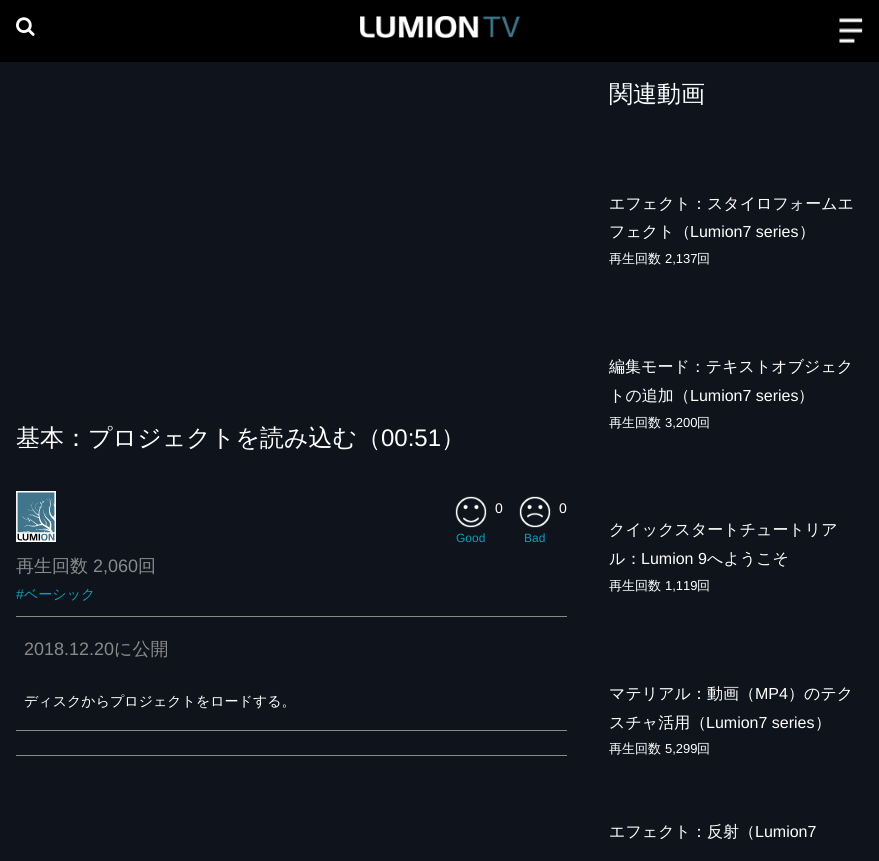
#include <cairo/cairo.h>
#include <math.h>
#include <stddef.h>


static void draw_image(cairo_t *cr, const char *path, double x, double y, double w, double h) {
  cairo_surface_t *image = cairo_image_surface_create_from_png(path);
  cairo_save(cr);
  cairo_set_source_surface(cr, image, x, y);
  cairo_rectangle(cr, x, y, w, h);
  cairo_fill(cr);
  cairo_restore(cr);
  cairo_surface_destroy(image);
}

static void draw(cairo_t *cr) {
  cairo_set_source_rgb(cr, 15 / 255.0, 19 / 255.0, 28 / 255.0);
  cairo_paint(cr);
  cairo_set_source_rgb(cr, 0, 0, 0);
  cairo_rectangle(cr, 0, 0, 879, 62);
  cairo_fill(cr);
  draw_image(cr, "images/1.png", 16, 17, 19, 19);
  draw_image(cr, "images/2.png", 360, 16, 160, 22);
  draw_image(cr, "images/3.png", 839, 18, 24, 25);
  draw_image(cr, "images/4.png", 455, 496, 32, 32);
  draw_image(cr, "images/5.png", 519, 496, 32, 32);
  draw_image(cr, "images/6.png", 16, 491, 40, 51);
  cairo_set_source_rgb(cr, 137 / 255.0, 137 / 255.0, 137 / 255.0);
  cairo_rectangle(cr, 16, 616, 551, 1);
  cairo_fill(cr);
  cairo_rectangle(cr, 16, 730, 551, 1);
  cairo_fill(cr);
  cairo_rectangle(cr, 16, 755, 551, 1);
  cairo_fill(cr);
  cairo_select_font_face(cr, "WenQuanYi Zen Hei Medium", CAIRO_FONT_SLANT_NORMAL, CAIRO_FONT_WEIGHT_NORMAL);
  cairo_set_font_size(cr, 24);
  cairo_set_source_rgb(cr, 1, 1, 1);
  cairo_move_to(cr, 16, 446);
  cairo_show_text(cr, "基本：プロジェクトを読み込む（");
  cairo_select_font_face(cr, "Liberation Sans", CAIRO_FONT_SLANT_NORMAL, CAIRO_FONT_WEIGHT_NORMAL);
  cairo_move_to(cr, 381, 446);
  cairo_show_text(cr, "00:51");
  cairo_select_font_face(cr, "WenQuanYi Zen Hei Medium", CAIRO_FONT_SLANT_NORMAL, CAIRO_FONT_WEIGHT_NORMAL);
  cairo_move_to(cr, 441, 446);
  cairo_show_text(cr, "）");
  cairo_select_font_face(cr, "Liberation Sans", CAIRO_FONT_SLANT_NORMAL, CAIRO_FONT_WEIGHT_NORMAL);
  cairo_set_font_size(cr, 14);
  cairo_move_to(cr, 495, 513);
  cairo_show_text(cr, "0");
  cairo_set_font_size(cr, 12);
  cairo_set_source_rgb(cr, 14 / 255.0, 156 / 255.0, 181 / 255.0);
  cairo_move_to(cr, 456, 542);
  cairo_show_text(cr, "Good");
  cairo_set_font_size(cr, 14);
  cairo_set_source_rgb(cr, 1, 1, 1);
  cairo_move_to(cr, 559, 513);
  cairo_show_text(cr, "0");
  cairo_set_font_size(cr, 12);
  cairo_set_source_rgb(cr, 14 / 255.0, 156 / 255.0, 181 / 255.0);
  cairo_move_to(cr, 524, 542);
  cairo_show_text(cr, "Bad");
  cairo_select_font_face(cr, "WenQuanYi Zen Hei Medium", CAIRO_FONT_SLANT_NORMAL, CAIRO_FONT_WEIGHT_NORMAL);
  cairo_set_font_size(cr, 18);
  cairo_set_source_rgb(cr, 137 / 255.0, 137 / 255.0, 137 / 255.0);
  cairo_move_to(cr, 16, 572);
  cairo_show_text(cr, "再生回数");
  cairo_select_font_face(cr, "Liberation Sans", CAIRO_FONT_SLANT_NORMAL, CAIRO_FONT_WEIGHT_NORMAL);
  cairo_move_to(cr, 93, 572);
  cairo_show_text(cr, "2,060");
  cairo_select_font_face(cr, "WenQuanYi Zen Hei Medium", CAIRO_FONT_SLANT_NORMAL, CAIRO_FONT_WEIGHT_NORMAL);
  cairo_move_to(cr, 138, 572);
  cairo_show_text(cr, "回");
  cairo_select_font_face(cr, "Liberation Sans", CAIRO_FONT_SLANT_NORMAL, CAIRO_FONT_WEIGHT_NORMAL);
  cairo_set_font_size(cr, 14);
  cairo_set_source_rgb(cr, 14 / 255.0, 156 / 255.0, 181 / 255.0);
  cairo_move_to(cr, 16, 599);
  cairo_show_text(cr, "#");
  cairo_select_font_face(cr, "WenQuanYi Zen Hei Medium", CAIRO_FONT_SLANT_NORMAL, CAIRO_FONT_WEIGHT_NORMAL);
  cairo_move_to(cr, 24, 599);
  cairo_show_text(cr, "ベーシック");
  cairo_select_font_face(cr, "Liberation Sans", CAIRO_FONT_SLANT_NORMAL, CAIRO_FONT_WEIGHT_NORMAL);
  cairo_set_font_size(cr, 18);
  cairo_set_source_rgb(cr, 137 / 255.0, 137 / 255.0, 137 / 255.0);
  cairo_move_to(cr, 24, 655);
  cairo_show_text(cr, "2018.12.20");
  cairo_select_font_face(cr, "WenQuanYi Zen Hei Medium", CAIRO_FONT_SLANT_NORMAL, CAIRO_FONT_WEIGHT_NORMAL);
  cairo_move_to(cr, 114, 655);
  cairo_show_text(cr, "に公開");
  cairo_set_font_size(cr, 14);
  cairo_set_source_rgb(cr, 1, 1, 1);
  cairo_move_to(cr, 24, 706);
  cairo_show_text(cr, "ディスクからプロジェクトをロードする。");
  cairo_set_font_size(cr, 24);
  cairo_move_to(cr, 609, 102);
  cairo_show_text(cr, "関連動画");
  cairo_set_font_size(cr, 16);
  cairo_move_to(cr, 609, 209);
  cairo_show_text(cr, "エフェクト：スタイロフォームエ");
  cairo_move_to(cr, 609, 237);
  cairo_show_text(cr, "フェクト（");
  cairo_select_font_face(cr, "Liberation Sans", CAIRO_FONT_SLANT_NORMAL, CAIRO_FONT_WEIGHT_NORMAL);
  cairo_move_to(cr, 690, 237);
  cairo_show_text(cr, "Lumion7 series");
  cairo_select_font_face(cr, "WenQuanYi Zen Hei Medium", CAIRO_FONT_SLANT_NORMAL, CAIRO_FONT_WEIGHT_NORMAL);
  cairo_move_to(cr, 799, 237);
  cairo_show_text(cr, "）");
  cairo_set_font_size(cr, 13);
  cairo_move_to(cr, 609, 263);
  cairo_show_text(cr, "再生回数");
  cairo_select_font_face(cr, "Liberation Sans", CAIRO_FONT_SLANT_NORMAL, CAIRO_FONT_WEIGHT_NORMAL);
  cairo_move_to(cr, 665, 263);
  cairo_show_text(cr, "2,137");
  cairo_select_font_face(cr, "WenQuanYi Zen Hei Medium", CAIRO_FONT_SLANT_NORMAL, CAIRO_FONT_WEIGHT_NORMAL);
  cairo_move_to(cr, 697, 263);
  cairo_show_text(cr, "回");
  cairo_set_font_size(cr, 16);
  cairo_move_to(cr, 609, 372);
  cairo_show_text(cr, "編集モード：テキストオブジェク");
  cairo_move_to(cr, 609, 401);
  cairo_show_text(cr, "トの追加（");
  cairo_select_font_face(cr, "Liberation Sans", CAIRO_FONT_SLANT_NORMAL, CAIRO_FONT_WEIGHT_NORMAL);
  cairo_move_to(cr, 690, 401);
  cairo_show_text(cr, "Lumion7 series");
  cairo_select_font_face(cr, "WenQuanYi Zen Hei Medium", CAIRO_FONT_SLANT_NORMAL, CAIRO_FONT_WEIGHT_NORMAL);
  cairo_move_to(cr, 798, 401);
  cairo_show_text(cr, "）");
  cairo_set_font_size(cr, 13);
  cairo_move_to(cr, 609, 427);
  cairo_show_text(cr, "再生回数");
  cairo_select_font_face(cr, "Liberation Sans", CAIRO_FONT_SLANT_NORMAL, CAIRO_FONT_WEIGHT_NORMAL);
  cairo_move_to(cr, 665, 427);
  cairo_show_text(cr, "3,200");
  cairo_select_font_face(cr, "WenQuanYi Zen Hei Medium", CAIRO_FONT_SLANT_NORMAL, CAIRO_FONT_WEIGHT_NORMAL);
  cairo_move_to(cr, 697, 427);
  cairo_show_text(cr, "回");
  cairo_set_font_size(cr, 16);
  cairo_move_to(cr, 609, 535);
  cairo_show_text(cr, "クイックスタートチュートリア");
  cairo_move_to(cr, 609, 564);
  cairo_show_text(cr, "ル：");
  cairo_select_font_face(cr, "Liberation Sans", CAIRO_FONT_SLANT_NORMAL, CAIRO_FONT_WEIGHT_NORMAL);
  cairo_move_to(cr, 641, 564);
  cairo_show_text(cr, "Lumion 9");
  cairo_select_font_face(cr, "WenQuanYi Zen Hei Medium", CAIRO_FONT_SLANT_NORMAL, CAIRO_FONT_WEIGHT_NORMAL);
  cairo_move_to(cr, 707, 564);
  cairo_show_text(cr, "へようこそ");
  cairo_set_font_size(cr, 13);
  cairo_move_to(cr, 609, 590);
  cairo_show_text(cr, "再生回数");
  cairo_select_font_face(cr, "Liberation Sans", CAIRO_FONT_SLANT_NORMAL, CAIRO_FONT_WEIGHT_NORMAL);
  cairo_move_to(cr, 665, 590);
  cairo_show_text(cr, "1,119");
  cairo_select_font_face(cr, "WenQuanYi Zen Hei Medium", CAIRO_FONT_SLANT_NORMAL, CAIRO_FONT_WEIGHT_NORMAL);
  cairo_move_to(cr, 697, 590);
  cairo_show_text(cr, "回");
  cairo_set_font_size(cr, 16);
  cairo_move_to(cr, 609, 699);
  cairo_show_text(cr, "マテリアル：動画（");
  cairo_select_font_face(cr, "Liberation Sans", CAIRO_FONT_SLANT_NORMAL, CAIRO_FONT_WEIGHT_NORMAL);
  cairo_move_to(cr, 755, 699);
  cairo_show_text(cr, "MP4");
  cairo_select_font_face(cr, "WenQuanYi Zen Hei Medium", CAIRO_FONT_SLANT_NORMAL, CAIRO_FONT_WEIGHT_NORMAL);
  cairo_move_to(cr, 788, 699);
  cairo_show_text(cr, "）のテク");
  cairo_move_to(cr, 609, 728);
  cairo_show_text(cr, "スチャ活用（");
  cairo_select_font_face(cr, "Liberation Sans", CAIRO_FONT_SLANT_NORMAL, CAIRO_FONT_WEIGHT_NORMAL);
  cairo_move_to(cr, 706, 728);
  cairo_show_text(cr, "Lumion7 series");
  cairo_select_font_face(cr, "WenQuanYi Zen Hei Medium", CAIRO_FONT_SLANT_NORMAL, CAIRO_FONT_WEIGHT_NORMAL);
  cairo_move_to(cr, 815, 728);
  cairo_show_text(cr, "）");
  cairo_set_font_size(cr, 13);
  cairo_move_to(cr, 609, 753);
  cairo_show_text(cr, "再生回数");
  cairo_select_font_face(cr, "Liberation Sans", CAIRO_FONT_SLANT_NORMAL, CAIRO_FONT_WEIGHT_NORMAL);
  cairo_move_to(cr, 665, 753);
  cairo_show_text(cr, "5,299");
  cairo_select_font_face(cr, "WenQuanYi Zen Hei Medium", CAIRO_FONT_SLANT_NORMAL, CAIRO_FONT_WEIGHT_NORMAL);
  cairo_move_to(cr, 697, 753);
  cairo_show_text(cr, "回");
  cairo_set_font_size(cr, 16);
  cairo_move_to(cr, 609, 837);
  cairo_show_text(cr, "エフェクト：反射（");
  cairo_select_font_face(cr, "Liberation Sans", CAIRO_FONT_SLANT_NORMAL, CAIRO_FONT_WEIGHT_NORMAL);
  cairo_move_to(cr, 755, 837);
  cairo_show_text(cr, "Lumion7");
}

int main(void) {
  cairo_surface_t *surface = cairo_image_surface_create(CAIRO_FORMAT_RGB24, 879, 861);
  cairo_t *cr = cairo_create(surface);
  cairo_font_options_t *options = cairo_font_options_create();
  cairo_font_options_set_hint_metrics(options, CAIRO_HINT_METRICS_OFF);
  cairo_font_options_set_hint_style(options, CAIRO_HINT_STYLE_NONE);
  cairo_set_font_options(cr, options);
  cairo_set_miter_limit(cr, 4);
  draw(cr);
  cairo_surface_write_to_png(surface, "out.png");
  cairo_font_options_destroy(options);
  cairo_destroy(cr);
  cairo_surface_destroy(surface);
  return 0;
}
